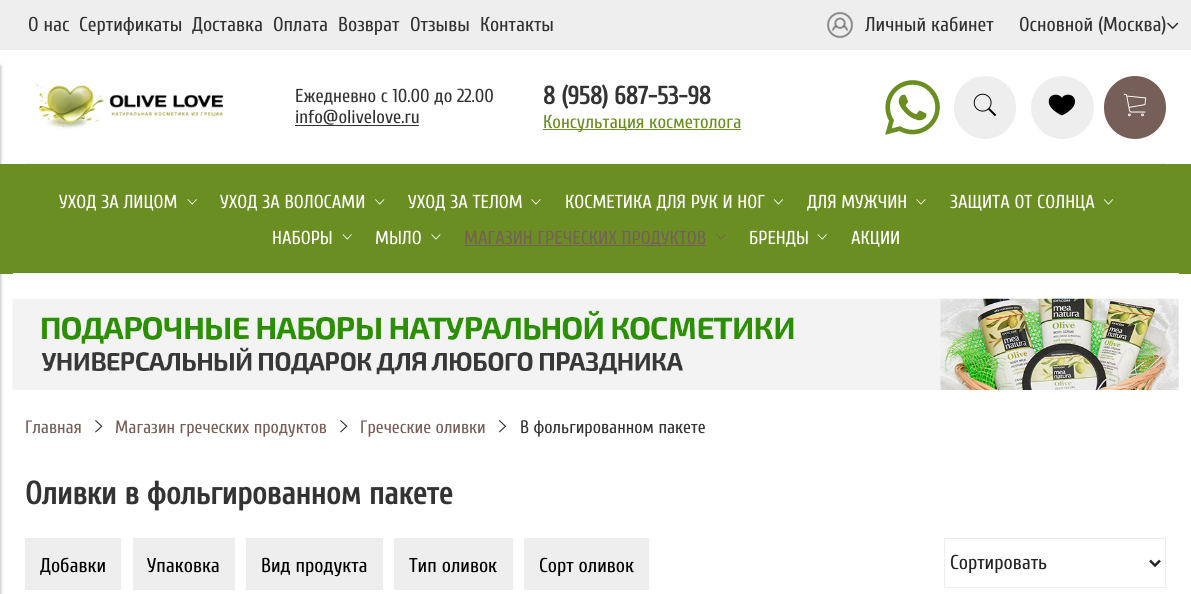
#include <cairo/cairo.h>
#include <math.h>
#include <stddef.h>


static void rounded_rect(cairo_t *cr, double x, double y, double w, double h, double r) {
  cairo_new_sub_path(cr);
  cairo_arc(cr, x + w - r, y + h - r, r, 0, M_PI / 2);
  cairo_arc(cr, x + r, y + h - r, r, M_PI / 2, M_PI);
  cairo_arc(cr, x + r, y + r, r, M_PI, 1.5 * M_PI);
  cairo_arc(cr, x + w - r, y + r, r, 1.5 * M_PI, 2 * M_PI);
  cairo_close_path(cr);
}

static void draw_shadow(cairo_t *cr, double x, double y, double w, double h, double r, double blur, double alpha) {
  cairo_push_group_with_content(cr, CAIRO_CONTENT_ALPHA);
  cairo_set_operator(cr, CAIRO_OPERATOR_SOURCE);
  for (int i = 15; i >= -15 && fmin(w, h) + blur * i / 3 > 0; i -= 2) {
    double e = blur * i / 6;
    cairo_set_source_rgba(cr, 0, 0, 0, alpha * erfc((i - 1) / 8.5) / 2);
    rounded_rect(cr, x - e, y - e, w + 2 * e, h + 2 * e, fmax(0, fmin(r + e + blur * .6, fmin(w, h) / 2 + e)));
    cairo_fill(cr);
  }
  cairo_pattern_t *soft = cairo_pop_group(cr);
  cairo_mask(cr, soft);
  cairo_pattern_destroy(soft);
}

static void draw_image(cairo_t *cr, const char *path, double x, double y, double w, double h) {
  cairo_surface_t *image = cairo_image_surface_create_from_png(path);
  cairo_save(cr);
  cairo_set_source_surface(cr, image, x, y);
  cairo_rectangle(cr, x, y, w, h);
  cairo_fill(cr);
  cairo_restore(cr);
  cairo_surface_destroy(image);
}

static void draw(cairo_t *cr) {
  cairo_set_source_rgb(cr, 1, 1, 1);
  cairo_paint(cr);
  cairo_set_source_rgb(cr, 0, 0, 0);
  draw_shadow(cr, -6, 66, 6, 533, 0, 2, 0.4);
  cairo_set_source_rgb(cr, 238 / 255.0, 238 / 255.0, 238 / 255.0);
  cairo_rectangle(cr, 0, 0, 1191, 50);
  cairo_fill(cr);
  draw_image(cr, "images/1.png", 827, 12, 26, 26);
  draw_image(cr, "images/2.png", 1167, 22, 12, 8);
  draw_image(cr, "images/3.png", 36, 82, 188, 47);
  cairo_set_source_rgb(cr, 51 / 255.0, 51 / 255.0, 51 / 255.0);
  cairo_rectangle(cr, 295, 125, 124, 1);
  cairo_fill(cr);
  cairo_set_source_rgb(cr, 107 / 255.0, 142 / 255.0, 35 / 255.0);
  cairo_rectangle(cr, 543, 129, 198, 1);
  cairo_fill(cr);
  draw_image(cr, "images/4.png", 885, 80, 55, 55);
  cairo_set_source_rgb(cr, 238 / 255.0, 238 / 255.0, 238 / 255.0);
  rounded_rect(cr, 954, 76, 62, 63, 31);
  cairo_fill(cr);
  draw_image(cr, "images/5.png", 973, 93, 24, 24);
  cairo_arc(cr, 1062.5, 107.5, 31.5, 0, 2 * M_PI);
  cairo_fill(cr);
  draw_image(cr, "images/6.png", 1048, 94, 27, 22);
  cairo_set_source_rgb(cr, 118 / 255.0, 95 / 255.0, 89 / 255.0);
  rounded_rect(cr, 1104, 76, 62, 63, 31);
  cairo_fill(cr);
  draw_image(cr, "images/7.png", 1123, 93, 24, 24);
  cairo_set_source_rgb(cr, 242 / 255.0, 242 / 255.0, 242 / 255.0);
  cairo_rectangle(cr, 25, 163, 1141, 1);
  cairo_fill(cr);
  cairo_set_source_rgb(cr, 107 / 255.0, 142 / 255.0, 35 / 255.0);
  cairo_rectangle(cr, 0, 164, 1191, 110);
  cairo_fill(cr);
  draw_image(cr, "images/8.png", 187, 199, 10, 6);
  draw_image(cr, "images/9.png", 375, 199, 10, 6);
  draw_image(cr, "images/10.png", 531, 199, 10, 6);
  draw_image(cr, "images/11.png", 773, 199, 10, 6);
  draw_image(cr, "images/10.png", 916, 199, 10, 6);
  draw_image(cr, "images/11.png", 1103, 199, 10, 6);
  draw_image(cr, "images/8.png", 342, 234, 10, 6);
  draw_image(cr, "images/10.png", 431, 234, 10, 6);
  cairo_set_source_rgb(cr, 118 / 255.0, 95 / 255.0, 89 / 255.0);
  cairo_rectangle(cr, 464, 245, 242, 1);
  cairo_fill(cr);
  draw_image(cr, "images/12.png", 716, 234, 10, 6);
  draw_image(cr, "images/8.png", 817, 234, 10, 6);
  cairo_set_source_rgb(cr, 242 / 255.0, 242 / 255.0, 242 / 255.0);
  cairo_rectangle(cr, 13, 273, 1166, 1);
  cairo_fill(cr);
  draw_image(cr, "images/13.png", 12, 298, 1167, 92);
  draw_image(cr, "images/14.png", 95, 420, 8, 13);
  draw_image(cr, "images/14.png", 340, 420, 8, 13);
  draw_image(cr, "images/15.png", 498, 420, 9, 13);
  cairo_set_source_rgb(cr, 238 / 255.0, 238 / 255.0, 238 / 255.0);
  cairo_rectangle(cr, 25, 538, 96, 52);
  cairo_fill(cr);
  cairo_rectangle(cr, 133, 538, 102, 52);
  cairo_fill(cr);
  cairo_rectangle(cr, 246, 538, 137, 52);
  cairo_fill(cr);
  cairo_rectangle(cr, 394, 538, 119, 52);
  cairo_fill(cr);
  cairo_rectangle(cr, 524, 538, 125, 52);
  cairo_fill(cr);
  cairo_rectangle(cr, 944.5, 538.5, 221, 49);
  cairo_set_line_width(cr, 1);
  cairo_stroke(cr);
  cairo_new_path(cr);
  cairo_move_to(cr, 1150, 560.5);
  cairo_line_to(cr, 1155, 565.5);
  cairo_line_to(cr, 1160, 560.5);
  cairo_set_source_rgb(cr, 37 / 255.0, 37 / 255.0, 37 / 255.0);
  cairo_set_line_width(cr, 2.5);
  cairo_stroke(cr);
  cairo_select_font_face(cr, "Cuprum", CAIRO_FONT_SLANT_NORMAL, CAIRO_FONT_WEIGHT_NORMAL);
  cairo_set_font_size(cr, 20);
  cairo_set_source_rgb(cr, 51 / 255.0, 51 / 255.0, 51 / 255.0);
  cairo_move_to(cr, 28, 31);
  cairo_show_text(cr, "О нас");
  cairo_move_to(cr, 79, 31);
  cairo_show_text(cr, "Сертификаты");
  cairo_move_to(cr, 192, 31);
  cairo_show_text(cr, "Доставка");
  cairo_move_to(cr, 273, 31);
  cairo_show_text(cr, "Оплата");
  cairo_move_to(cr, 338, 31);
  cairo_show_text(cr, "Возврат");
  cairo_move_to(cr, 410, 31);
  cairo_show_text(cr, "Отзывы");
  cairo_move_to(cr, 480, 31);
  cairo_show_text(cr, "Контакты");
  cairo_move_to(cr, 865, 31);
  cairo_show_text(cr, "Личный кабинет");
  cairo_move_to(cr, 1019, 31);
  cairo_show_text(cr, "Основной (Москва)");
  cairo_set_font_size(cr, 18.75);
  cairo_move_to(cr, 295, 102);
  cairo_show_text(cr, "Ежедневно с 10.00 до 22.00");
  cairo_move_to(cr, 295, 123);
  cairo_show_text(cr, "info@olivelove.ru");
  cairo_select_font_face(cr, "Cuprum", CAIRO_FONT_SLANT_NORMAL, CAIRO_FONT_WEIGHT_BOLD);
  cairo_set_font_size(cr, 25);
  cairo_move_to(cr, 543, 104);
  cairo_show_text(cr, "8 (958) 687-53-98");
  cairo_select_font_face(cr, "Cuprum", CAIRO_FONT_SLANT_NORMAL, CAIRO_FONT_WEIGHT_NORMAL);
  cairo_set_font_size(cr, 18.75);
  cairo_set_source_rgb(cr, 107 / 255.0, 142 / 255.0, 35 / 255.0);
  cairo_move_to(cr, 543, 128);
  cairo_show_text(cr, "Консультация косметолога");
  cairo_set_source_rgb(cr, 1, 1, 1);
  cairo_move_to(cr, 59, 208);
  cairo_show_text(cr, "УХОД ЗА ЛИЦОМ");
  cairo_move_to(cr, 220, 208);
  cairo_show_text(cr, "УХОД ЗА ВОЛОСАМИ");
  cairo_move_to(cr, 408, 208);
  cairo_show_text(cr, "УХОД ЗА ТЕЛОМ");
  cairo_move_to(cr, 565, 208);
  cairo_show_text(cr, "КОСМЕТИКА ДЛЯ РУК И НОГ");
  cairo_move_to(cr, 807, 208);
  cairo_show_text(cr, "ДЛЯ МУЖЧИН");
  cairo_move_to(cr, 950, 208);
  cairo_show_text(cr, "ЗАЩИТА ОТ СОЛНЦА");
  cairo_move_to(cr, 272, 244);
  cairo_show_text(cr, "НАБОРЫ");
  cairo_move_to(cr, 375, 244);
  cairo_show_text(cr, "МЫЛО");
  cairo_set_source_rgb(cr, 118 / 255.0, 95 / 255.0, 89 / 255.0);
  cairo_move_to(cr, 464, 244);
  cairo_show_text(cr, "МАГАЗИН ГРЕЧЕСКИХ ПРОДУКТОВ");
  cairo_set_source_rgb(cr, 1, 1, 1);
  cairo_move_to(cr, 749, 244);
  cairo_show_text(cr, "БРЕНДЫ");
  cairo_move_to(cr, 851, 244);
  cairo_show_text(cr, "АКЦИИ");
  cairo_set_font_size(cr, 18);
  cairo_set_source_rgb(cr, 118 / 255.0, 95 / 255.0, 89 / 255.0);
  cairo_move_to(cr, 25, 433);
  cairo_show_text(cr, "Главная");
  cairo_move_to(cr, 115, 433);
  cairo_show_text(cr, "Магазин греческих продуктов");
  cairo_move_to(cr, 360, 433);
  cairo_show_text(cr, "Греческие оливки");
  cairo_set_source_rgb(cr, 51 / 255.0, 51 / 255.0, 51 / 255.0);
  cairo_move_to(cr, 520, 433);
  cairo_show_text(cr, "В фольгированном пакете");
  cairo_select_font_face(cr, "Cuprum", CAIRO_FONT_SLANT_NORMAL, CAIRO_FONT_WEIGHT_BOLD);
  cairo_set_font_size(cr, 32);
  cairo_move_to(cr, 25, 504);
  cairo_show_text(cr, "Оливки в фольгированном пакете");
  cairo_select_font_face(cr, "Cuprum", CAIRO_FONT_SLANT_NORMAL, CAIRO_FONT_WEIGHT_NORMAL);
  cairo_set_font_size(cr, 20);
  cairo_set_source_rgb(cr, 0, 0, 0);
  cairo_move_to(cr, 40, 572);
  cairo_show_text(cr, "Добавки");
  cairo_move_to(cr, 147, 572);
  cairo_show_text(cr, "Упаковка");
  cairo_move_to(cr, 261, 572);
  cairo_show_text(cr, "Вид продукта");
  cairo_move_to(cr, 409, 572);
  cairo_show_text(cr, "Тип оливок");
  cairo_move_to(cr, 539, 572);
  cairo_show_text(cr, "Сорт оливок");
  cairo_set_source_rgb(cr, 37 / 255.0, 37 / 255.0, 37 / 255.0);
  cairo_move_to(cr, 950, 569);
  cairo_show_text(cr, "Сортировать");
}

int main(void) {
  cairo_surface_t *surface = cairo_image_surface_create(CAIRO_FORMAT_RGB24, 1191, 594);
  cairo_t *cr = cairo_create(surface);
  cairo_font_options_t *options = cairo_font_options_create();
  cairo_font_options_set_hint_metrics(options, CAIRO_HINT_METRICS_OFF);
  cairo_font_options_set_hint_style(options, CAIRO_HINT_STYLE_NONE);
  cairo_set_font_options(cr, options);
  cairo_set_miter_limit(cr, 4);
  draw(cr);
  cairo_surface_write_to_png(surface, "out.png");
  cairo_font_options_destroy(options);
  cairo_destroy(cr);
  cairo_surface_destroy(surface);
  return 0;
}
